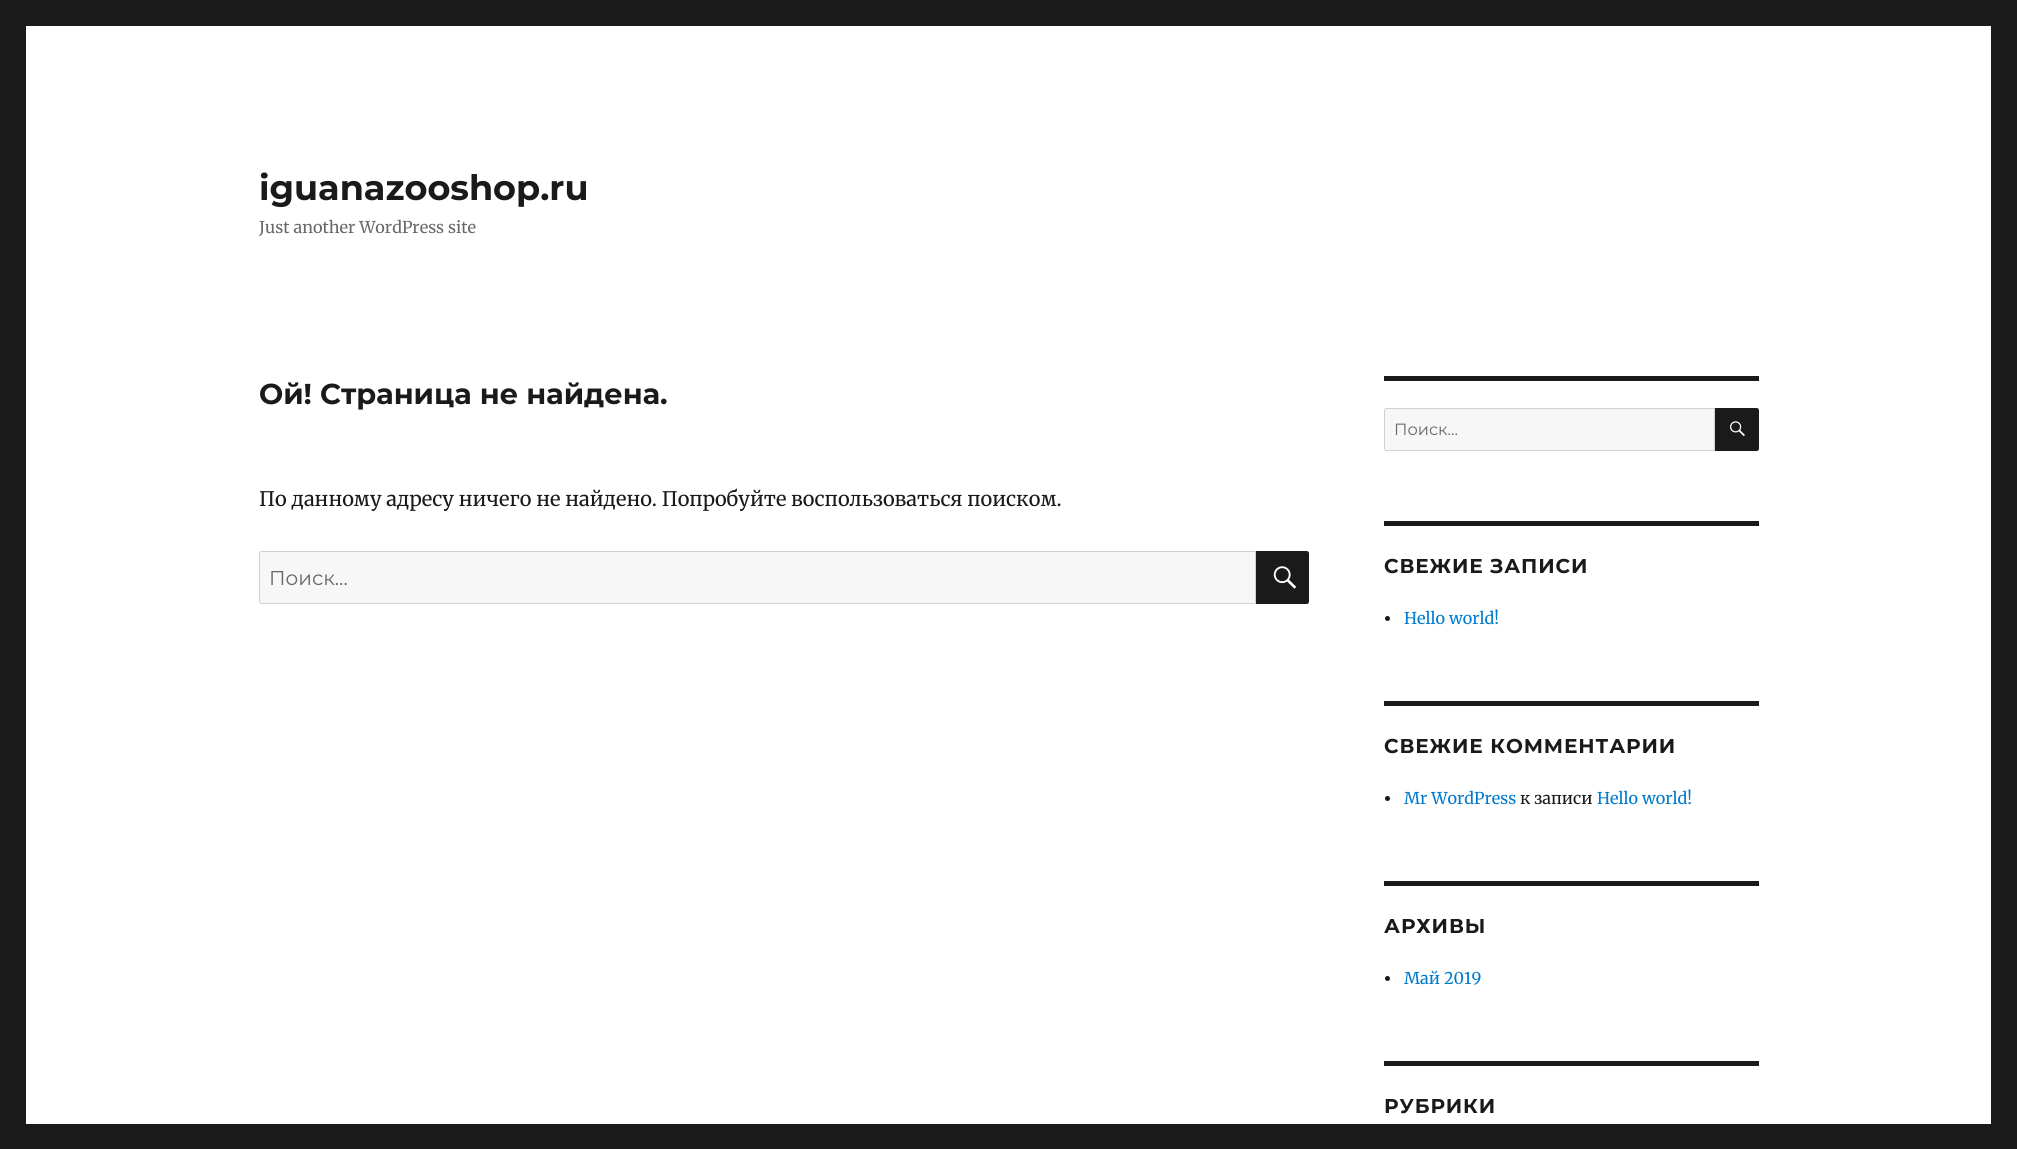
#include <cairo/cairo.h>
#include <math.h>
#include <stddef.h>


static void draw_spaced(cairo_t *cr, double x, double y, const char *s, double letter, double word) {
  cairo_move_to(cr, x, y);
  while (*s) {
    char ch[5] = {0};
    int n = 0;
    do ch[n++] = *s++; while ((*s & 0xC0) == 0x80);
    cairo_show_text(cr, ch);
    cairo_rel_move_to(cr, letter + word * (*ch == ' '), 0);
  }
}

static void draw_image(cairo_t *cr, const char *path, double x, double y, double w, double h) {
  cairo_surface_t *image = cairo_image_surface_create_from_png(path);
  cairo_save(cr);
  cairo_set_source_surface(cr, image, x, y);
  cairo_rectangle(cr, x, y, w, h);
  cairo_fill(cr);
  cairo_restore(cr);
  cairo_surface_destroy(image);
}

static void draw(cairo_t *cr) {
  cairo_set_source_rgb(cr, 26 / 255.0, 26 / 255.0, 26 / 255.0);
  cairo_paint(cr);
  cairo_set_source_rgb(cr, 1, 1, 1);
  cairo_rectangle(cr, 26, 26, 1965, 1098);
  cairo_fill(cr);
  cairo_set_source_rgb(cr, 247 / 255.0, 247 / 255.0, 247 / 255.0);
  cairo_new_path(cr);
  cairo_move_to(cr, 261.5, 551.5);
  cairo_line_to(cr, 1255.5, 551.5);
  cairo_line_to(cr, 1255.5, 603.5);
  cairo_line_to(cr, 261.5, 603.5);
  cairo_curve_to(cr, 260.5, 603.5, 259.5, 602.5, 259.5, 601.5);
  cairo_line_to(cr, 259.5, 553.5);
  cairo_curve_to(cr, 259.5, 552.5, 260.5, 551.5, 261.5, 551.5);
  cairo_close_path(cr);
  cairo_fill_preserve(cr);
  cairo_set_source_rgb(cr, 209 / 255.0, 209 / 255.0, 209 / 255.0);
  cairo_set_line_width(cr, 1);
  cairo_stroke(cr);
  cairo_set_source_rgb(cr, 26 / 255.0, 26 / 255.0, 26 / 255.0);
  cairo_new_path(cr);
  cairo_move_to(cr, 1256, 551);
  cairo_line_to(cr, 1306.5, 551);
  cairo_curve_to(cr, 1308, 551, 1309, 552, 1309, 553.5);
  cairo_line_to(cr, 1309, 601.5);
  cairo_curve_to(cr, 1309, 603, 1308, 604, 1306.5, 604);
  cairo_line_to(cr, 1256, 604);
  cairo_close_path(cr);
  cairo_fill(cr);
  draw_image(cr, "images/1.png", 1273, 566, 24, 23);
  cairo_rectangle(cr, 1384, 376, 375, 5);
  cairo_fill(cr);
  cairo_set_source_rgb(cr, 247 / 255.0, 247 / 255.0, 247 / 255.0);
  cairo_new_path(cr);
  cairo_move_to(cr, 1386.5, 408.5);
  cairo_line_to(cr, 1714.5, 408.5);
  cairo_line_to(cr, 1714.5, 450.5);
  cairo_line_to(cr, 1386.5, 450.5);
  cairo_curve_to(cr, 1385.5, 450.5, 1384.5, 449.5, 1384.5, 448.5);
  cairo_line_to(cr, 1384.5, 410.5);
  cairo_curve_to(cr, 1384.5, 409.5, 1385.5, 408.5, 1386.5, 408.5);
  cairo_close_path(cr);
  cairo_fill_preserve(cr);
  cairo_set_source_rgb(cr, 209 / 255.0, 209 / 255.0, 209 / 255.0);
  cairo_stroke(cr);
  cairo_set_source_rgb(cr, 26 / 255.0, 26 / 255.0, 26 / 255.0);
  cairo_new_path(cr);
  cairo_move_to(cr, 1715, 408);
  cairo_line_to(cr, 1756.5, 408);
  cairo_curve_to(cr, 1758, 408, 1759, 409, 1759, 410.5);
  cairo_line_to(cr, 1759, 448.5);
  cairo_curve_to(cr, 1759, 450, 1758, 451, 1756.5, 451);
  cairo_line_to(cr, 1715, 451);
  cairo_close_path(cr);
  cairo_fill(cr);
  draw_image(cr, "images/2.png", 1730, 421, 15, 16);
  cairo_rectangle(cr, 1384, 521, 375, 5);
  cairo_fill(cr);
  cairo_arc(cr, 1387.5, 618.5, 2.5, 0, 2 * M_PI);
  cairo_fill(cr);
  cairo_rectangle(cr, 1384, 701, 375, 5);
  cairo_fill(cr);
  cairo_arc(cr, 1387.5, 798.5, 2.5, 0, 2 * M_PI);
  cairo_fill(cr);
  cairo_rectangle(cr, 1384, 881, 375, 5);
  cairo_fill(cr);
  cairo_arc(cr, 1387.5, 978.5, 2.5, 0, 2 * M_PI);
  cairo_fill(cr);
  cairo_rectangle(cr, 1384, 1061, 375, 5);
  cairo_fill(cr);
  cairo_select_font_face(cr, "Montserrat", CAIRO_FONT_SLANT_NORMAL, CAIRO_FONT_WEIGHT_BOLD);
  cairo_set_font_size(cr, 35);
  cairo_move_to(cr, 259, 200);
  cairo_show_text(cr, "iguanazooshop.ru");
  cairo_select_font_face(cr, "Merriweather", CAIRO_FONT_SLANT_NORMAL, CAIRO_FONT_WEIGHT_NORMAL);
  cairo_set_font_size(cr, 16.25);
  cairo_set_source_rgb(cr, 104 / 255.0, 104 / 255.0, 104 / 255.0);
  cairo_move_to(cr, 259, 233);
  cairo_show_text(cr, "Just another WordPress site");
  cairo_select_font_face(cr, "Montserrat", CAIRO_FONT_SLANT_NORMAL, CAIRO_FONT_WEIGHT_BOLD);
  cairo_set_font_size(cr, 28.75);
  cairo_set_source_rgb(cr, 26 / 255.0, 26 / 255.0, 26 / 255.0);
  cairo_move_to(cr, 259, 404);
  cairo_show_text(cr, "Ой! Страница не найдена.");
  cairo_select_font_face(cr, "Merriweather", CAIRO_FONT_SLANT_NORMAL, CAIRO_FONT_WEIGHT_NORMAL);
  cairo_set_font_size(cr, 20);
  cairo_move_to(cr, 259, 506);
  cairo_show_text(cr, "По данному адресу ничего не найдено. Попробуйте воспользоваться поиском.");
  cairo_select_font_face(cr, "Montserrat", CAIRO_FONT_SLANT_NORMAL, CAIRO_FONT_WEIGHT_NORMAL);
  cairo_set_source_rgb(cr, 104 / 255.0, 104 / 255.0, 104 / 255.0);
  cairo_move_to(cr, 269, 585);
  cairo_show_text(cr, "Поиск…");
  cairo_set_font_size(cr, 16.25);
  cairo_move_to(cr, 1394, 435);
  cairo_show_text(cr, "Поиск…");
  cairo_select_font_face(cr, "Montserrat", CAIRO_FONT_SLANT_NORMAL, CAIRO_FONT_WEIGHT_BOLD);
  cairo_set_font_size(cr, 20);
  cairo_set_source_rgb(cr, 26 / 255.0, 26 / 255.0, 26 / 255.0);
  draw_spaced(cr, 1384, 573, "СВЕЖИЕ ЗАПИСИ", 0.9, 0);
  cairo_select_font_face(cr, "Merriweather", CAIRO_FONT_SLANT_NORMAL, CAIRO_FONT_WEIGHT_NORMAL);
  cairo_set_font_size(cr, 16.25);
  cairo_set_source_rgb(cr, 0, 122 / 255.0, 204 / 255.0);
  cairo_move_to(cr, 1404, 624);
  cairo_show_text(cr, "Hello world!");
  cairo_select_font_face(cr, "Montserrat", CAIRO_FONT_SLANT_NORMAL, CAIRO_FONT_WEIGHT_BOLD);
  cairo_set_font_size(cr, 20);
  cairo_set_source_rgb(cr, 26 / 255.0, 26 / 255.0, 26 / 255.0);
  draw_spaced(cr, 1384, 753, "СВЕЖИЕ КОММЕНТАРИИ", 0.9, 0);
  cairo_select_font_face(cr, "Merriweather", CAIRO_FONT_SLANT_NORMAL, CAIRO_FONT_WEIGHT_NORMAL);
  cairo_set_font_size(cr, 16.25);
  cairo_set_source_rgb(cr, 0, 122 / 255.0, 204 / 255.0);
  cairo_move_to(cr, 1404, 804);
  cairo_show_text(cr, "Mr WordPress");
  cairo_set_source_rgb(cr, 26 / 255.0, 26 / 255.0, 26 / 255.0);
  cairo_move_to(cr, 1520, 804);
  cairo_show_text(cr, "к записи");
  cairo_set_source_rgb(cr, 0, 122 / 255.0, 204 / 255.0);
  cairo_move_to(cr, 1597, 804);
  cairo_show_text(cr, "Hello world!");
  cairo_select_font_face(cr, "Montserrat", CAIRO_FONT_SLANT_NORMAL, CAIRO_FONT_WEIGHT_BOLD);
  cairo_set_font_size(cr, 20);
  cairo_set_source_rgb(cr, 26 / 255.0, 26 / 255.0, 26 / 255.0);
  draw_spaced(cr, 1384, 933, "АРХИВЫ", 0.9, 0);
  cairo_select_font_face(cr, "Merriweather", CAIRO_FONT_SLANT_NORMAL, CAIRO_FONT_WEIGHT_NORMAL);
  cairo_set_font_size(cr, 16.25);
  cairo_set_source_rgb(cr, 0, 122 / 255.0, 204 / 255.0);
  cairo_move_to(cr, 1404, 984);
  cairo_show_text(cr, "Май 2019");
  cairo_select_font_face(cr, "Montserrat", CAIRO_FONT_SLANT_NORMAL, CAIRO_FONT_WEIGHT_BOLD);
  cairo_set_font_size(cr, 20);
  cairo_set_source_rgb(cr, 26 / 255.0, 26 / 255.0, 26 / 255.0);
  draw_spaced(cr, 1384, 1113, "РУБРИКИ", 0.9, 0);
}

int main(void) {
  cairo_surface_t *surface = cairo_image_surface_create(CAIRO_FORMAT_RGB24, 2017, 1149);
  cairo_t *cr = cairo_create(surface);
  cairo_font_options_t *options = cairo_font_options_create();
  cairo_font_options_set_hint_metrics(options, CAIRO_HINT_METRICS_OFF);
  cairo_font_options_set_hint_style(options, CAIRO_HINT_STYLE_NONE);
  cairo_set_font_options(cr, options);
  cairo_set_miter_limit(cr, 4);
  draw(cr);
  cairo_surface_write_to_png(surface, "out.png");
  cairo_font_options_destroy(options);
  cairo_destroy(cr);
  cairo_surface_destroy(surface);
  return 0;
}
